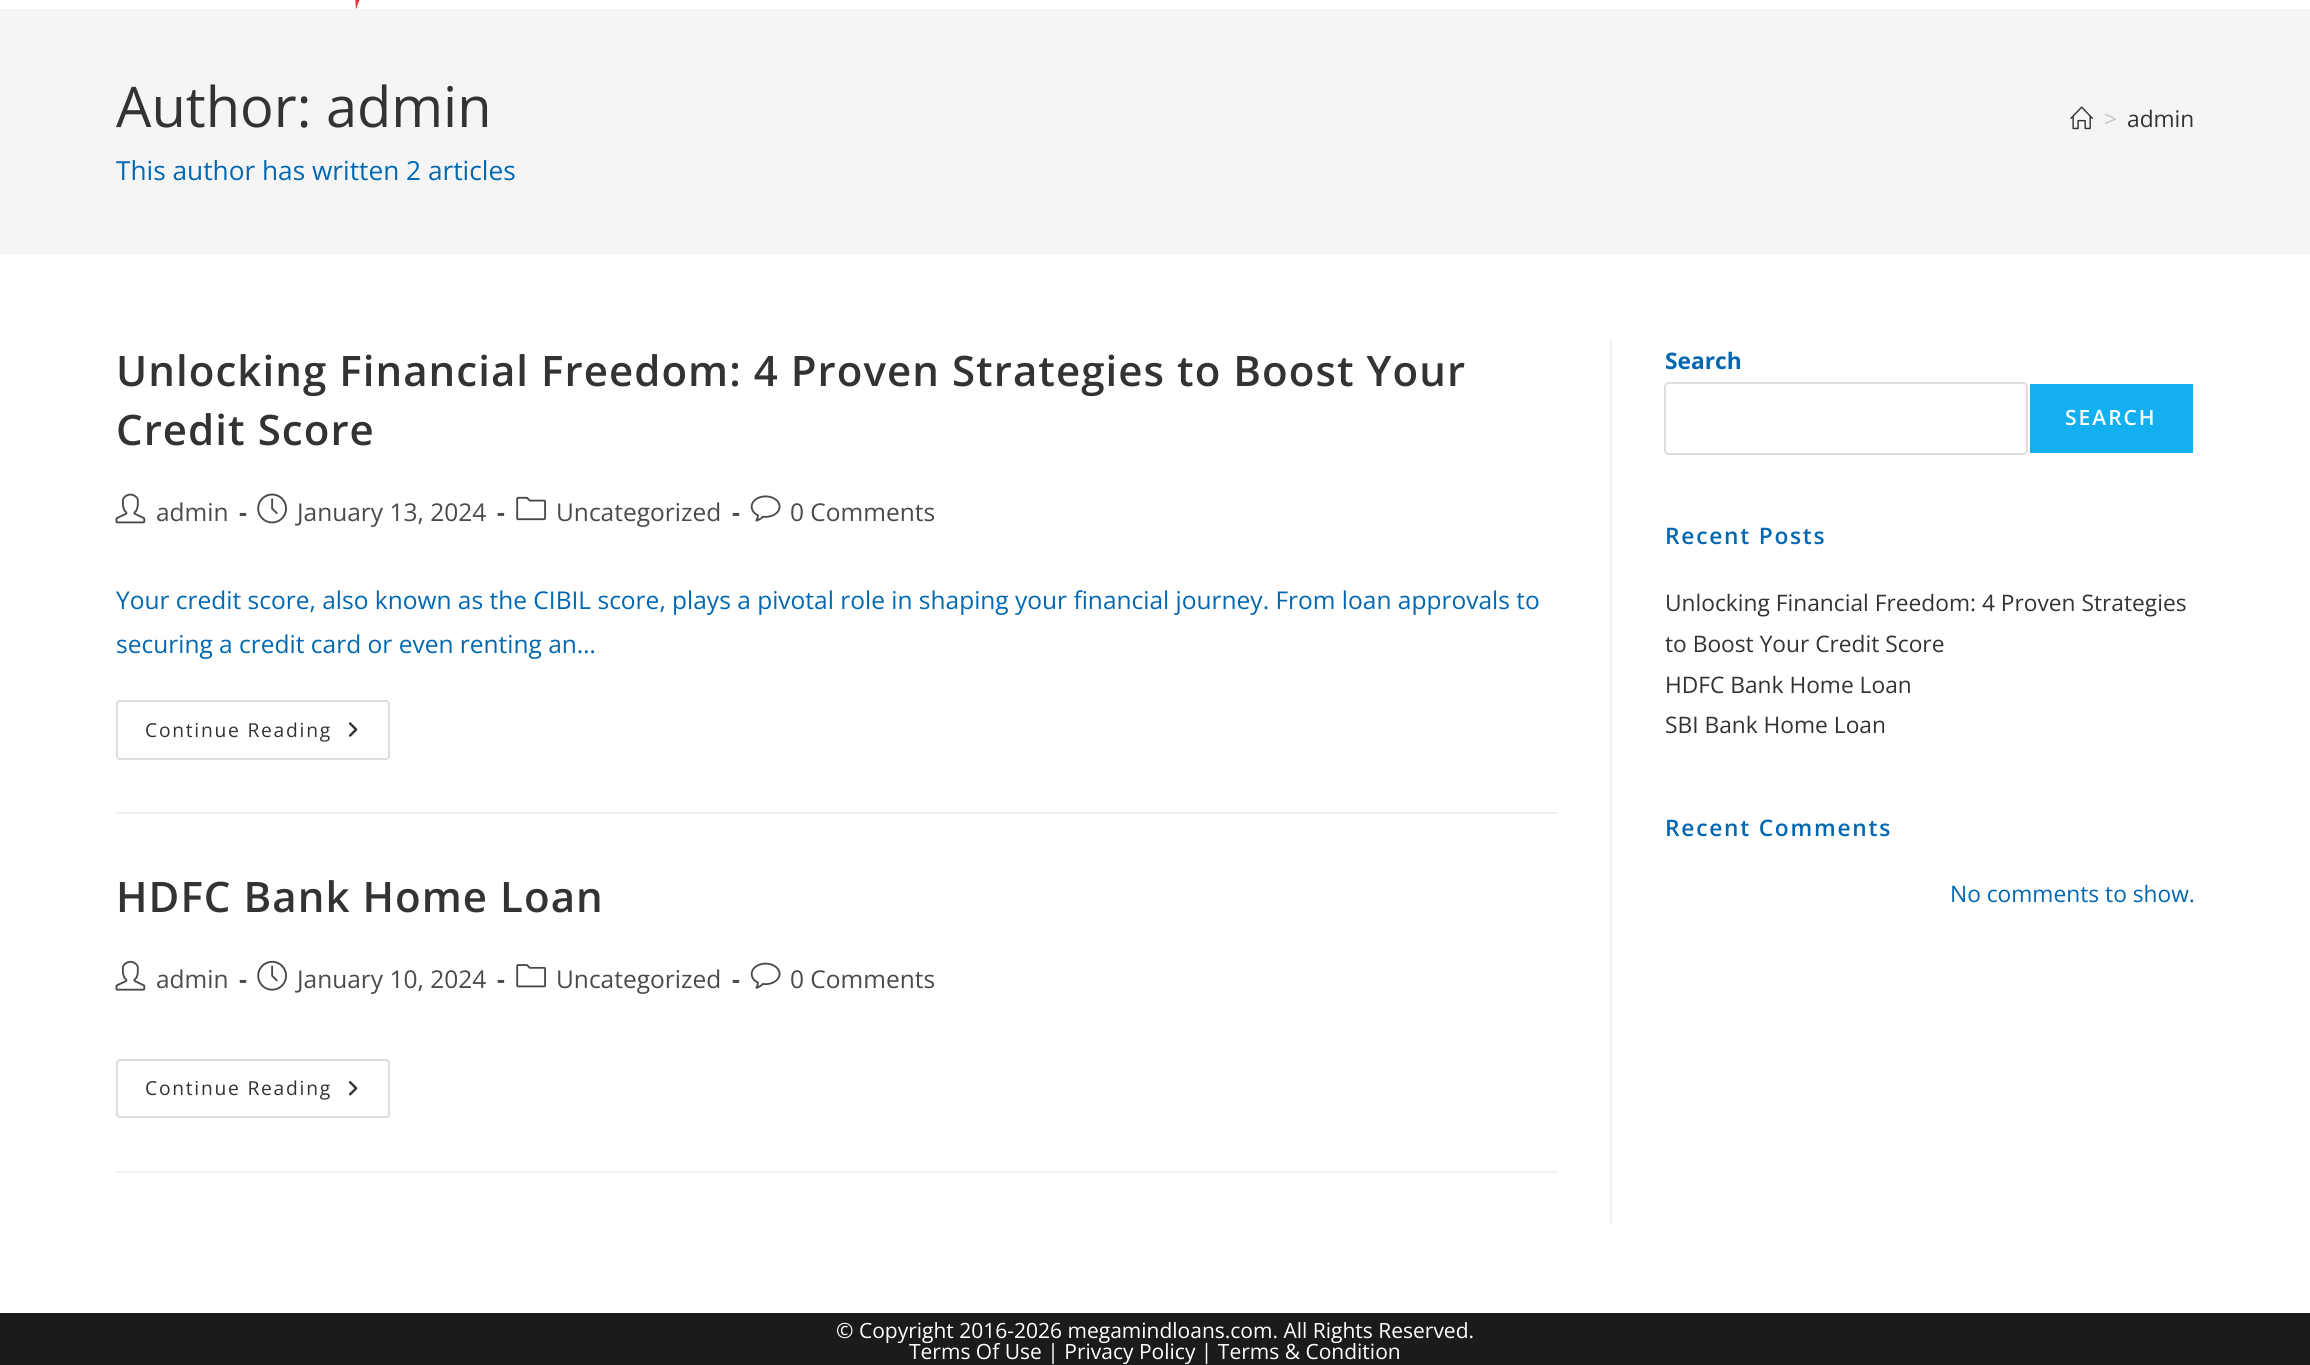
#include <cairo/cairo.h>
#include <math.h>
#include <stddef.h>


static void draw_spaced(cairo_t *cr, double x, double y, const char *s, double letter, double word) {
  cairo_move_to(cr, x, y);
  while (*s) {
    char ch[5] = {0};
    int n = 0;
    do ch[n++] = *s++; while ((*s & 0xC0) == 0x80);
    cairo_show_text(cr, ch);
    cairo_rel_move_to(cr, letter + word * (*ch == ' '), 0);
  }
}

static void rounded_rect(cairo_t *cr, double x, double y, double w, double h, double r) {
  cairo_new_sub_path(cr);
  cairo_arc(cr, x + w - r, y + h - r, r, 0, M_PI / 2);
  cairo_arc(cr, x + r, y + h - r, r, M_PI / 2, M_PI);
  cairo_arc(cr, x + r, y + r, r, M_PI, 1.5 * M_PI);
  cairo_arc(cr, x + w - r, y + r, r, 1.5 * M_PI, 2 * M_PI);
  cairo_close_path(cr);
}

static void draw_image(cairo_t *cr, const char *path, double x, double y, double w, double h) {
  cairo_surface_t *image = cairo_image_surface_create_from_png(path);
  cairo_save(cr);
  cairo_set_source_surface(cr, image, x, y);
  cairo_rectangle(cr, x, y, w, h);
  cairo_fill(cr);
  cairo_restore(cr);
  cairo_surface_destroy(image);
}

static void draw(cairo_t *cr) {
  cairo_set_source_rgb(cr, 1, 1, 1);
  cairo_paint(cr);
  draw_image(cr, "images/1.png", 355, 0, 5, 9);
  cairo_set_source_rgb(cr, 245 / 255.0, 245 / 255.0, 245 / 255.0);
  cairo_rectangle(cr, 0, 9, 2310, 245);
  cairo_fill(cr);
  draw_image(cr, "images/2.png", 2070, 106, 23, 24);
  cairo_set_source_rgb(cr, 241 / 255.0, 241 / 255.0, 241 / 255.0);
  cairo_rectangle(cr, 1610, 341, 2, 884);
  cairo_fill(cr);
  cairo_rectangle(cr, 116, 812, 1442, 2);
  cairo_fill(cr);
  draw_image(cr, "images/3.png", 115, 493, 31, 31);
  draw_image(cr, "images/4.png", 257, 493, 30, 31);
  draw_image(cr, "images/5.png", 516, 496, 30, 25);
  draw_image(cr, "images/6.png", 750, 495, 31, 27);
  rounded_rect(cr, 117, 701, 272, 58, 3);
  cairo_set_source_rgb(cr, 221 / 255.0, 221 / 255.0, 221 / 255.0);
  cairo_stroke(cr);
  draw_image(cr, "images/7.png", 348, 722, 10, 15);
  cairo_set_source_rgb(cr, 241 / 255.0, 241 / 255.0, 241 / 255.0);
  cairo_rectangle(cr, 116, 1171, 1442, 2);
  cairo_fill(cr);
  draw_image(cr, "images/8.png", 115, 960, 31, 31);
  draw_image(cr, "images/9.png", 257, 960, 30, 31);
  draw_image(cr, "images/10.png", 516, 964, 30, 24);
  draw_image(cr, "images/11.png", 750, 962, 31, 27);
  rounded_rect(cr, 117, 1060, 272, 57, 3);
  cairo_set_source_rgb(cr, 221 / 255.0, 221 / 255.0, 221 / 255.0);
  cairo_stroke(cr);
  draw_image(cr, "images/12.png", 348, 1081, 10, 15);
  rounded_rect(cr, 1665, 383, 362, 71, 4);
  cairo_stroke(cr);
  cairo_set_source_rgb(cr, 19 / 255.0, 175 / 255.0, 240 / 255.0);
  cairo_rectangle(cr, 2030, 384, 163, 69);
  cairo_fill(cr);
  cairo_set_source_rgb(cr, 27 / 255.0, 27 / 255.0, 27 / 255.0);
  cairo_rectangle(cr, 0, 1313, 2310, 52);
  cairo_fill(cr);
  cairo_select_font_face(cr, "Open Sans", CAIRO_FONT_SLANT_NORMAL, CAIRO_FONT_WEIGHT_NORMAL);
  cairo_set_font_size(cr, 56);
  cairo_set_source_rgb(cr, 51 / 255.0, 51 / 255.0, 51 / 255.0);
  cairo_move_to(cr, 116, 127);
  cairo_show_text(cr, "Author: admin");
  cairo_set_font_size(cr, 22.75);
  cairo_set_source_rgb(cr, 198 / 255.0, 198 / 255.0, 198 / 255.0);
  cairo_move_to(cr, 2104, 127);
  cairo_show_text(cr, ">");
  cairo_set_source_rgb(cr, 51 / 255.0, 51 / 255.0, 51 / 255.0);
  cairo_move_to(cr, 2127, 127);
  cairo_show_text(cr, "admin");
  cairo_set_font_size(cr, 26.25);
  cairo_set_source_rgb(cr, 2 / 255.0, 103 / 255.0, 177 / 255.0);
  cairo_move_to(cr, 116, 180);
  cairo_show_text(cr, "This author has written 2 articles");
  cairo_select_font_face(cr, "Open Sans SemiBold", CAIRO_FONT_SLANT_NORMAL, CAIRO_FONT_WEIGHT_NORMAL);
  cairo_set_font_size(cr, 42);
  cairo_set_source_rgb(cr, 51 / 255.0, 51 / 255.0, 51 / 255.0);
  draw_spaced(cr, 116, 386, "Unlocking Financial Freedom: 4 Proven Strategies to Boost Your", 1.05, 0);
  draw_spaced(cr, 116, 445, "Credit Score", 1.05, 0);
  cairo_select_font_face(cr, "Open Sans", CAIRO_FONT_SLANT_NORMAL, CAIRO_FONT_WEIGHT_NORMAL);
  cairo_set_font_size(cr, 24.5);
  cairo_set_source_rgb(cr, 74 / 255.0, 74 / 255.0, 74 / 255.0);
  cairo_move_to(cr, 156, 521);
  cairo_show_text(cr, "admin");
  cairo_select_font_face(cr, "Open Sans", CAIRO_FONT_SLANT_NORMAL, CAIRO_FONT_WEIGHT_BOLD);
  cairo_move_to(cr, 239, 521);
  cairo_show_text(cr, "-");
  cairo_select_font_face(cr, "Open Sans", CAIRO_FONT_SLANT_NORMAL, CAIRO_FONT_WEIGHT_NORMAL);
  cairo_move_to(cr, 297, 521);
  cairo_show_text(cr, "January 13, 2024");
  cairo_select_font_face(cr, "Open Sans", CAIRO_FONT_SLANT_NORMAL, CAIRO_FONT_WEIGHT_BOLD);
  cairo_move_to(cr, 497, 521);
  cairo_show_text(cr, "-");
  cairo_select_font_face(cr, "Open Sans", CAIRO_FONT_SLANT_NORMAL, CAIRO_FONT_WEIGHT_NORMAL);
  cairo_move_to(cr, 556, 521);
  cairo_show_text(cr, "Uncategorized");
  cairo_select_font_face(cr, "Open Sans", CAIRO_FONT_SLANT_NORMAL, CAIRO_FONT_WEIGHT_BOLD);
  cairo_move_to(cr, 732, 521);
  cairo_show_text(cr, "-");
  cairo_select_font_face(cr, "Open Sans", CAIRO_FONT_SLANT_NORMAL, CAIRO_FONT_WEIGHT_NORMAL);
  cairo_move_to(cr, 790, 521);
  cairo_show_text(cr, "0 Comments");
  cairo_set_source_rgb(cr, 2 / 255.0, 103 / 255.0, 177 / 255.0);
  cairo_move_to(cr, 116, 609);
  cairo_show_text(cr, "Your credit score, also known as the CIBIL score, plays a pivotal role in shaping your financial journey. From loan approvals to");
  cairo_move_to(cr, 116, 653);
  cairo_show_text(cr, "securing a credit card or even renting an…");
  cairo_set_font_size(cr, 19.25);
  cairo_set_source_rgb(cr, 51 / 255.0, 51 / 255.0, 51 / 255.0);
  draw_spaced(cr, 145, 737, "Continue Reading", 1.75, 0);
  cairo_select_font_face(cr, "Open Sans SemiBold", CAIRO_FONT_SLANT_NORMAL, CAIRO_FONT_WEIGHT_NORMAL);
  cairo_set_font_size(cr, 42);
  draw_spaced(cr, 116, 912, "HDFC Bank Home Loan", 1.05, 0);
  cairo_select_font_face(cr, "Open Sans", CAIRO_FONT_SLANT_NORMAL, CAIRO_FONT_WEIGHT_NORMAL);
  cairo_set_font_size(cr, 24.5);
  cairo_set_source_rgb(cr, 74 / 255.0, 74 / 255.0, 74 / 255.0);
  cairo_move_to(cr, 156, 988);
  cairo_show_text(cr, "admin");
  cairo_select_font_face(cr, "Open Sans", CAIRO_FONT_SLANT_NORMAL, CAIRO_FONT_WEIGHT_BOLD);
  cairo_move_to(cr, 239, 988);
  cairo_show_text(cr, "-");
  cairo_select_font_face(cr, "Open Sans", CAIRO_FONT_SLANT_NORMAL, CAIRO_FONT_WEIGHT_NORMAL);
  cairo_move_to(cr, 297, 988);
  cairo_show_text(cr, "January 10, 2024");
  cairo_select_font_face(cr, "Open Sans", CAIRO_FONT_SLANT_NORMAL, CAIRO_FONT_WEIGHT_BOLD);
  cairo_move_to(cr, 497, 988);
  cairo_show_text(cr, "-");
  cairo_select_font_face(cr, "Open Sans", CAIRO_FONT_SLANT_NORMAL, CAIRO_FONT_WEIGHT_NORMAL);
  cairo_move_to(cr, 556, 988);
  cairo_show_text(cr, "Uncategorized");
  cairo_select_font_face(cr, "Open Sans", CAIRO_FONT_SLANT_NORMAL, CAIRO_FONT_WEIGHT_BOLD);
  cairo_move_to(cr, 732, 988);
  cairo_show_text(cr, "-");
  cairo_select_font_face(cr, "Open Sans", CAIRO_FONT_SLANT_NORMAL, CAIRO_FONT_WEIGHT_NORMAL);
  cairo_move_to(cr, 790, 988);
  cairo_show_text(cr, "0 Comments");
  cairo_set_font_size(cr, 19.25);
  cairo_set_source_rgb(cr, 51 / 255.0, 51 / 255.0, 51 / 255.0);
  draw_spaced(cr, 145, 1095, "Continue Reading", 1.75, 0);
  cairo_select_font_face(cr, "Open Sans", CAIRO_FONT_SLANT_NORMAL, CAIRO_FONT_WEIGHT_BOLD);
  cairo_set_font_size(cr, 22.75);
  cairo_set_source_rgb(cr, 2 / 255.0, 103 / 255.0, 177 / 255.0);
  cairo_move_to(cr, 1665, 369);
  cairo_show_text(cr, "Search");
  cairo_select_font_face(cr, "Open Sans SemiBold", CAIRO_FONT_SLANT_NORMAL, CAIRO_FONT_WEIGHT_NORMAL);
  cairo_set_font_size(cr, 21);
  cairo_set_source_rgb(cr, 1, 1, 1);
  draw_spaced(cr, 2065, 425, "SEARCH", 2, 0);
  cairo_set_font_size(cr, 22.75);
  cairo_set_source_rgb(cr, 2 / 255.0, 103 / 255.0, 177 / 255.0);
  draw_spaced(cr, 1665, 544, "Recent Posts", 1.75, 0);
  cairo_select_font_face(cr, "Open Sans", CAIRO_FONT_SLANT_NORMAL, CAIRO_FONT_WEIGHT_NORMAL);
  cairo_set_source_rgb(cr, 51 / 255.0, 51 / 255.0, 51 / 255.0);
  cairo_move_to(cr, 1665, 611);
  cairo_show_text(cr, "Unlocking Financial Freedom: 4 Proven Strategies");
  cairo_move_to(cr, 1665, 652);
  cairo_show_text(cr, "to Boost Your Credit Score");
  cairo_move_to(cr, 1665, 693);
  cairo_show_text(cr, "HDFC Bank Home Loan");
  cairo_move_to(cr, 1665, 733);
  cairo_show_text(cr, "SBI Bank Home Loan");
  cairo_select_font_face(cr, "Open Sans SemiBold", CAIRO_FONT_SLANT_NORMAL, CAIRO_FONT_WEIGHT_NORMAL);
  cairo_set_source_rgb(cr, 2 / 255.0, 103 / 255.0, 177 / 255.0);
  draw_spaced(cr, 1665, 836, "Recent Comments", 1.75, 0);
  cairo_select_font_face(cr, "Open Sans", CAIRO_FONT_SLANT_NORMAL, CAIRO_FONT_WEIGHT_NORMAL);
  cairo_move_to(cr, 1950, 902);
  cairo_show_text(cr, "No comments to show.");
  cairo_set_font_size(cr, 21);
  cairo_set_source_rgb(cr, 1, 1, 1);
  cairo_move_to(cr, 836, 1338);
  cairo_show_text(cr, "© Copyright 2016-2026 megamindloans.com. All Rights Reserved.");
  cairo_move_to(cr, 909, 1359);
  cairo_show_text(cr, "Terms Of Use | Privacy Policy | Terms & Condition");
}

int main(void) {
  cairo_surface_t *surface = cairo_image_surface_create(CAIRO_FORMAT_RGB24, 2310, 1365);
  cairo_t *cr = cairo_create(surface);
  cairo_font_options_t *options = cairo_font_options_create();
  cairo_font_options_set_hint_metrics(options, CAIRO_HINT_METRICS_OFF);
  cairo_font_options_set_hint_style(options, CAIRO_HINT_STYLE_NONE);
  cairo_set_font_options(cr, options);
  cairo_set_miter_limit(cr, 4);
  draw(cr);
  cairo_surface_write_to_png(surface, "out.png");
  cairo_font_options_destroy(options);
  cairo_destroy(cr);
  cairo_surface_destroy(surface);
  return 0;
}
